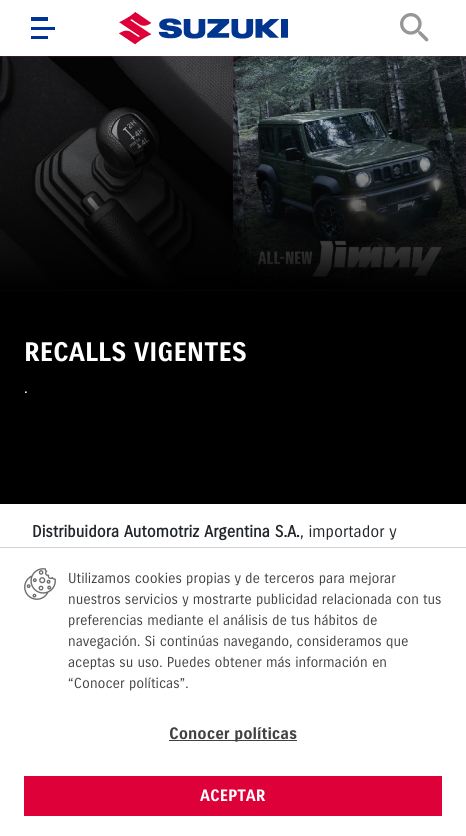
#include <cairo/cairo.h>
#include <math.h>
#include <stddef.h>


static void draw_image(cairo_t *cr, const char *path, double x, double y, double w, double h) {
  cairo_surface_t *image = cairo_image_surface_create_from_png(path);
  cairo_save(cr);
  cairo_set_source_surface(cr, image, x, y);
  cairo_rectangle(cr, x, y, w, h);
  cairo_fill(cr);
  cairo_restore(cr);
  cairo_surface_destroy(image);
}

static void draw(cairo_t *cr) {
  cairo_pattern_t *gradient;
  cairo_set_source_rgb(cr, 1, 1, 1);
  cairo_paint(cr);
  cairo_set_source_rgb(cr, 0, 51 / 255.0, 153 / 255.0);
  cairo_rectangle(cr, 31, 36, 17, 3);
  cairo_fill(cr);
  cairo_rectangle(cr, 31, 27, 24, 3);
  cairo_fill(cr);
  cairo_rectangle(cr, 31, 17, 17, 4);
  cairo_fill(cr);
  draw_image(cr, "images/1.png", 119, 12, 169, 33);
  draw_image(cr, "images/2.png", 400, 13, 29, 29);
  draw_image(cr, "images/3.png", 0, 56, 466, 233);
  gradient = cairo_pattern_create_linear(233, 586, 233, 79);
  cairo_pattern_add_color_stop_rgba(gradient, 0.28, 0, 0, 0, 1);
  cairo_pattern_add_color_stop_rgba(gradient, 0.58, 0, 0, 0, 1);
  cairo_pattern_add_color_stop_rgba(gradient, 1, 0, 0, 0, 0);
  cairo_set_source(cr, gradient);
  cairo_pattern_destroy(gradient);
  cairo_rectangle(cr, 0, 84, 466, 420);
  cairo_fill(cr);
  cairo_set_source_rgb(cr, 210 / 255.0, 210 / 255.0, 210 / 255.0);
  cairo_rectangle(cr, 0, 547, 466, 1);
  cairo_fill(cr);
  draw_image(cr, "images/4.png", 24, 568, 32, 32);
  cairo_set_source_rgb(cr, 65 / 255.0, 65 / 255.0, 65 / 255.0);
  cairo_rectangle(cr, 169, 740, 128, 1);
  cairo_fill(cr);
  cairo_set_source_rgb(cr, 222 / 255.0, 0, 57 / 255.0);
  cairo_rectangle(cr, 24, 776, 418, 40);
  cairo_fill(cr);
  cairo_select_font_face(cr, "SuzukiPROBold", CAIRO_FONT_SLANT_NORMAL, CAIRO_FONT_WEIGHT_BOLD);
  cairo_set_font_size(cr, 26);
  cairo_set_source_rgb(cr, 1, 1, 1);
  cairo_move_to(cr, 24, 361);
  cairo_show_text(cr, "RECALLS VIGENTES");
  cairo_select_font_face(cr, "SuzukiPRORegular", CAIRO_FONT_SLANT_NORMAL, CAIRO_FONT_WEIGHT_NORMAL);
  cairo_set_font_size(cr, 16);
  cairo_move_to(cr, 24, 393);
  cairo_show_text(cr, ".");
  cairo_select_font_face(cr, "SuzukiPRORegular", CAIRO_FONT_SLANT_NORMAL, CAIRO_FONT_WEIGHT_BOLD);
  cairo_set_source_rgb(cr, 33 / 255.0, 37 / 255.0, 41 / 255.0);
  cairo_move_to(cr, 32, 537);
  cairo_show_text(cr, "Distribuidora Automotriz Argentina S.A.");
  cairo_select_font_face(cr, "SuzukiPRORegular", CAIRO_FONT_SLANT_NORMAL, CAIRO_FONT_WEIGHT_NORMAL);
  cairo_move_to(cr, 300, 537);
  cairo_show_text(cr, ", importador y");
  cairo_set_font_size(cr, 14);
  cairo_set_source_rgb(cr, 65 / 255.0, 65 / 255.0, 65 / 255.0);
  cairo_move_to(cr, 68, 583);
  cairo_show_text(cr, "Utilizamos cookies propias y de terceros para mejorar");
  cairo_move_to(cr, 68, 604);
  cairo_show_text(cr, "nuestros servicios y mostrarte publicidad relacionada con tus");
  cairo_move_to(cr, 68, 625);
  cairo_show_text(cr, "preferencias mediante el análisis de tus hábitos de");
  cairo_move_to(cr, 68, 646);
  cairo_show_text(cr, "navegación. Si continúas navegando, consideramos que");
  cairo_move_to(cr, 68, 667);
  cairo_show_text(cr, "aceptas su uso. Puedes obtener más información en");
  cairo_move_to(cr, 68, 688);
  cairo_show_text(cr, "“Conocer políticas”.");
  cairo_select_font_face(cr, "SuzukiPROBold", CAIRO_FONT_SLANT_NORMAL, CAIRO_FONT_WEIGHT_BOLD);
  cairo_set_font_size(cr, 16);
  cairo_move_to(cr, 169, 739);
  cairo_show_text(cr, "Conocer políticas");
  cairo_set_source_rgb(cr, 1, 1, 1);
  cairo_move_to(cr, 200, 801);
  cairo_show_text(cr, "ACEPTAR");
}

int main(void) {
  cairo_surface_t *surface = cairo_image_surface_create(CAIRO_FORMAT_RGB24, 466, 836);
  cairo_t *cr = cairo_create(surface);
  cairo_font_options_t *options = cairo_font_options_create();
  cairo_font_options_set_hint_metrics(options, CAIRO_HINT_METRICS_OFF);
  cairo_font_options_set_hint_style(options, CAIRO_HINT_STYLE_NONE);
  cairo_set_font_options(cr, options);
  cairo_set_miter_limit(cr, 4);
  draw(cr);
  cairo_surface_write_to_png(surface, "out.png");
  cairo_font_options_destroy(options);
  cairo_destroy(cr);
  cairo_surface_destroy(surface);
  return 0;
}
